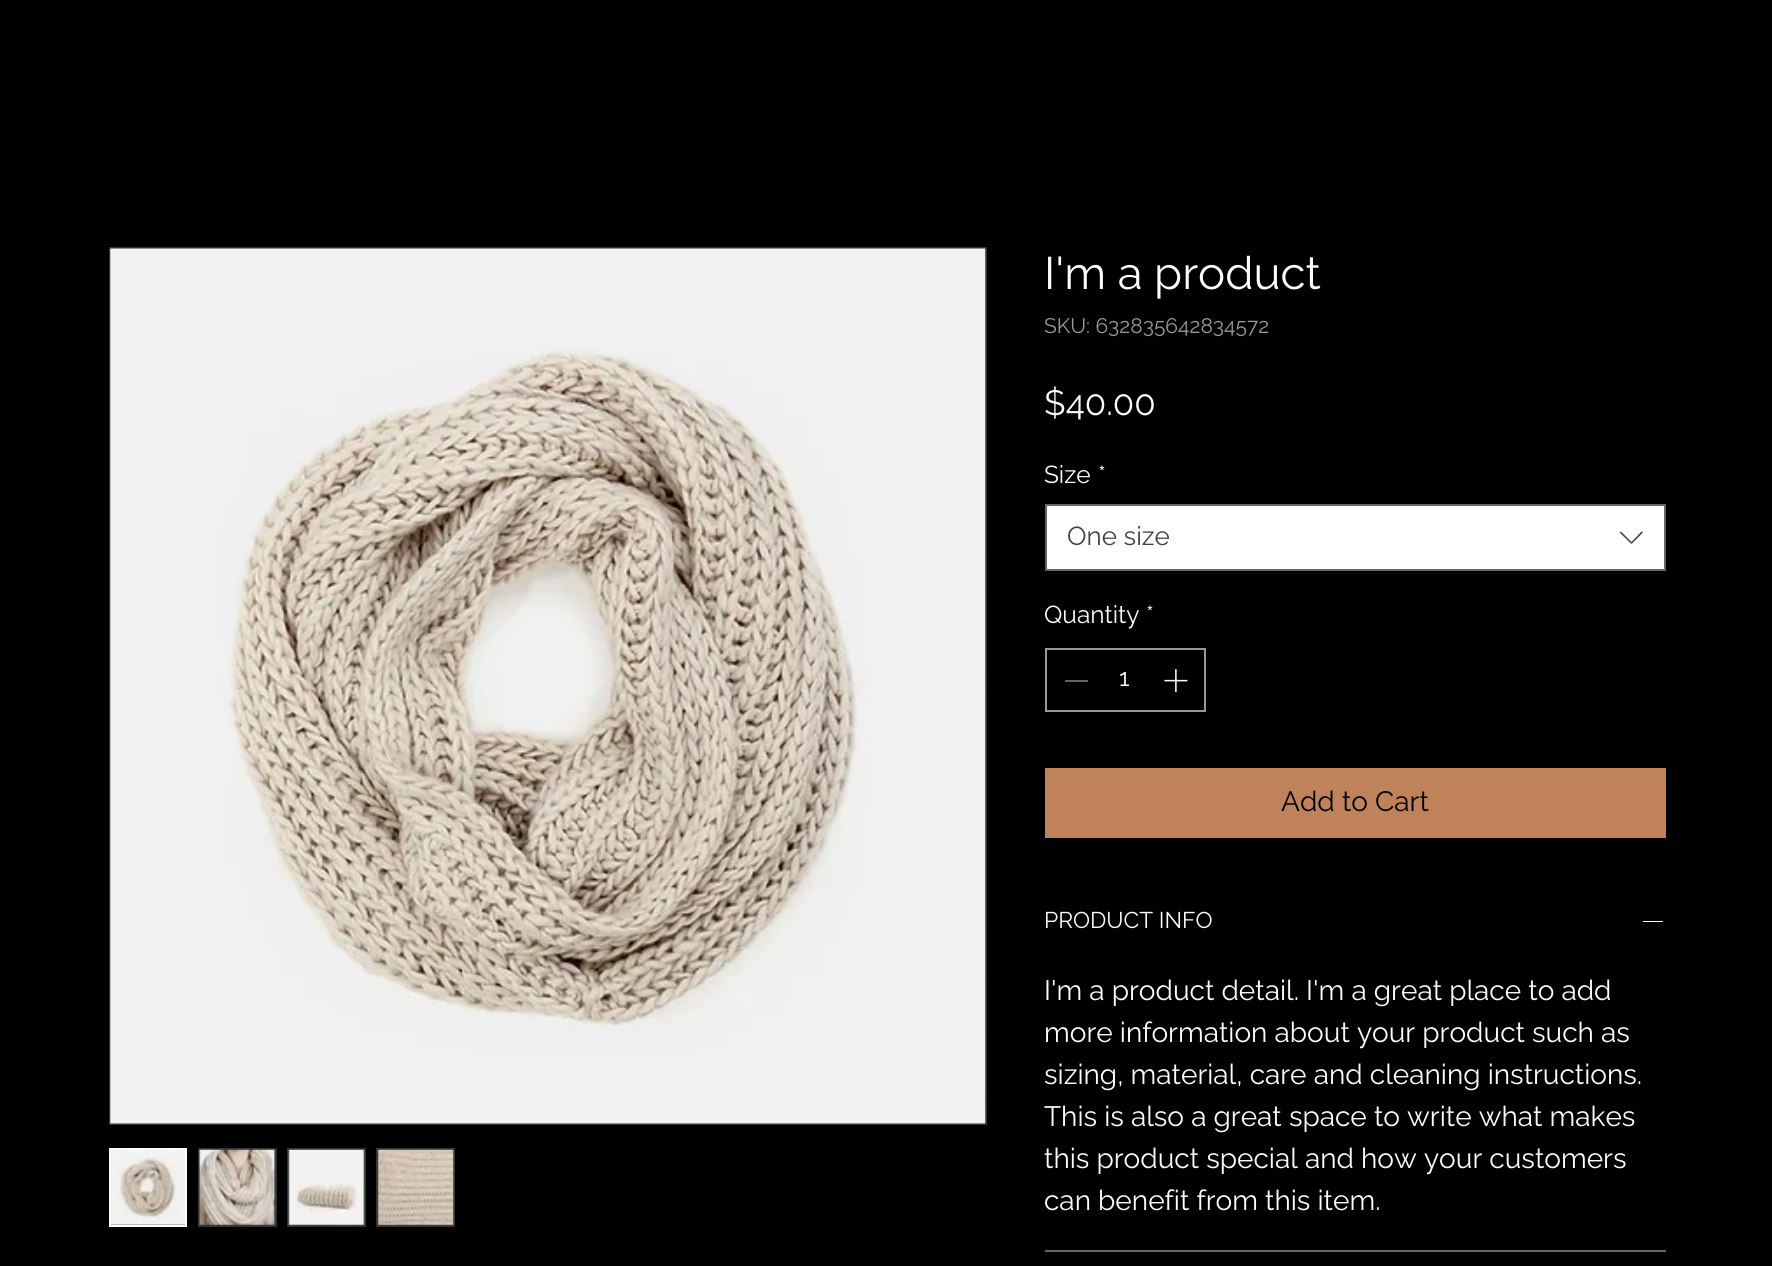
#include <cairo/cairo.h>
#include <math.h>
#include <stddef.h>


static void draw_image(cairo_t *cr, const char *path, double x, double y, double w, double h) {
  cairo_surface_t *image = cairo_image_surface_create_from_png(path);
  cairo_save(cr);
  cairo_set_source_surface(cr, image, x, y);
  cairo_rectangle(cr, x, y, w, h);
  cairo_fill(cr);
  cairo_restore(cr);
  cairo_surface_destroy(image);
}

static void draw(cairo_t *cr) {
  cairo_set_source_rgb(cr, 0, 0, 0);
  cairo_paint(cr);
  cairo_rectangle(cr, 110, 248, 876, 876);
  cairo_set_source_rgb(cr, 51 / 255.0, 51 / 255.0, 51 / 255.0);
  cairo_stroke(cr);
  draw_image(cr, "images/1.png", 110, 248, 876, 876);
  cairo_rectangle(cr, 110, 1149, 76, 77);
  cairo_set_source_rgb(cr, 1, 252 / 255.0, 252 / 255.0);
  cairo_stroke(cr);
  draw_image(cr, "images/2.png", 110, 1149, 75, 76);
  cairo_set_source_rgb(cr, 51 / 255.0, 51 / 255.0, 51 / 255.0);
  cairo_rectangle(cr, 198, 1148, 79, 79);
  cairo_fill(cr);
  draw_image(cr, "images/3.png", 199, 1149, 77, 77);
  cairo_rectangle(cr, 287, 1148, 79, 79);
  cairo_fill(cr);
  draw_image(cr, "images/4.png", 288, 1149, 77, 77);
  cairo_rectangle(cr, 376, 1148, 79, 79);
  cairo_fill(cr);
  draw_image(cr, "images/5.png", 377, 1149, 77, 77);
  cairo_set_source_rgb(cr, 1, 1, 1);
  cairo_rectangle(cr, 1046, 505, 619, 65);
  cairo_fill_preserve(cr);
  cairo_set_source_rgb(cr, 102 / 255.0, 102 / 255.0, 102 / 255.0);
  cairo_stroke(cr);
  cairo_set_source_rgb(cr, 68 / 255.0, 68 / 255.0, 68 / 255.0);
  cairo_set_fill_rule(cr, CAIRO_FILL_RULE_EVEN_ODD);
  cairo_new_path(cr);
  cairo_move_to(cr, 1641.5, 531.5);
  cairo_line_to(cr, 1643, 532.5);
  cairo_line_to(cr, 1631.5, 544);
  cairo_line_to(cr, 1619.5, 532.5);
  cairo_line_to(cr, 1621, 531.5);
  cairo_line_to(cr, 1631.5, 542);
  cairo_close_path(cr);
  cairo_fill(cr);
  cairo_rectangle(cr, 1046, 649, 159, 62);
  cairo_set_source_rgb(cr, 153 / 255.0, 151 / 255.0, 151 / 255.0);
  cairo_stroke(cr);
  cairo_set_source_rgb(cr, 100 / 255.0, 100 / 255.0, 100 / 255.0);
  cairo_rectangle(cr, 1065, 680, 23, 2);
  cairo_fill(cr);
  draw_image(cr, "images/6.png", 1164, 669, 24, 24);
  cairo_set_source_rgb(cr, 191 / 255.0, 130 / 255.0, 90 / 255.0);
  cairo_rectangle(cr, 1045, 768, 621, 70);
  cairo_fill(cr);
  cairo_set_source_rgb(cr, 102 / 255.0, 102 / 255.0, 102 / 255.0);
  cairo_rectangle(cr, 1045, 1250, 621, 2);
  cairo_fill(cr);
  cairo_set_source_rgb(cr, 1, 252 / 255.0, 252 / 255.0);
  cairo_rectangle(cr, 1643, 921, 20, 1);
  cairo_fill(cr);
  cairo_select_font_face(cr, "Raleway", CAIRO_FONT_SLANT_NORMAL, CAIRO_FONT_WEIGHT_NORMAL);
  cairo_set_font_size(cr, 45.5);
  cairo_move_to(cr, 1044, 289);
  cairo_show_text(cr, "I'm a product");
  cairo_set_font_size(cr, 21);
  cairo_set_source_rgb(cr, 153 / 255.0, 153 / 255.0, 153 / 255.0);
  cairo_move_to(cr, 1044, 333);
  cairo_show_text(cr, "SKU: 632835642834572");
  cairo_set_font_size(cr, 35);
  cairo_set_source_rgb(cr, 1, 252 / 255.0, 252 / 255.0);
  cairo_move_to(cr, 1044, 415);
  cairo_show_text(cr, "$40.00");
  cairo_set_font_size(cr, 24.5);
  cairo_move_to(cr, 1044, 483);
  cairo_show_text(cr, "Size");
  cairo_move_to(cr, 1098, 483);
  cairo_show_text(cr, "*");
  cairo_save(cr);
  cairo_set_fill_rule(cr, CAIRO_FILL_RULE_WINDING);
  cairo_rectangle(cr, 1068, 520, 537, 35);
  cairo_clip(cr);
  cairo_set_font_size(cr, 26);
  cairo_set_source_rgb(cr, 68 / 255.0, 68 / 255.0, 68 / 255.0);
  cairo_move_to(cr, 1067, 545);
  cairo_show_text(cr, "One size");
  cairo_restore(cr);
  cairo_move_to(cr, 1044, 623);
  cairo_show_text(cr, "Quantity");
  cairo_move_to(cr, 1146, 623);
  cairo_show_text(cr, "*");
  cairo_move_to(cr, 1119, 686);
  cairo_show_text(cr, "1");
  cairo_set_font_size(cr, 28);
  cairo_set_source_rgb(cr, 0, 0, 0);
  cairo_move_to(cr, 1281, 811);
  cairo_show_text(cr, "Add to Cart");
  cairo_set_font_size(cr, 22.75);
  cairo_set_source_rgb(cr, 1, 252 / 255.0, 252 / 255.0);
  cairo_move_to(cr, 1044, 928);
  cairo_show_text(cr, "PRODUCT INFO");
  cairo_set_font_size(cr, 28);
  cairo_move_to(cr, 1044, 1000);
  cairo_show_text(cr, "I'm a product detail. I'm a great place to add");
  cairo_move_to(cr, 1044, 1042);
  cairo_show_text(cr, "more information about your product such as");
  cairo_move_to(cr, 1044, 1084);
  cairo_show_text(cr, "sizing, material, care and cleaning instructions.");
  cairo_move_to(cr, 1044, 1126);
  cairo_show_text(cr, "This is also a great space to write what makes");
  cairo_move_to(cr, 1044, 1168);
  cairo_show_text(cr, "this product special and how your customers");
  cairo_move_to(cr, 1044, 1210);
  cairo_show_text(cr, "can benefit from this item.");
}

int main(void) {
  cairo_surface_t *surface = cairo_image_surface_create(CAIRO_FORMAT_RGB24, 1772, 1266);
  cairo_t *cr = cairo_create(surface);
  cairo_font_options_t *options = cairo_font_options_create();
  cairo_font_options_set_hint_metrics(options, CAIRO_HINT_METRICS_OFF);
  cairo_font_options_set_hint_style(options, CAIRO_HINT_STYLE_NONE);
  cairo_set_font_options(cr, options);
  cairo_set_miter_limit(cr, 4);
  draw(cr);
  cairo_surface_write_to_png(surface, "out.png");
  cairo_font_options_destroy(options);
  cairo_destroy(cr);
  cairo_surface_destroy(surface);
  return 0;
}
